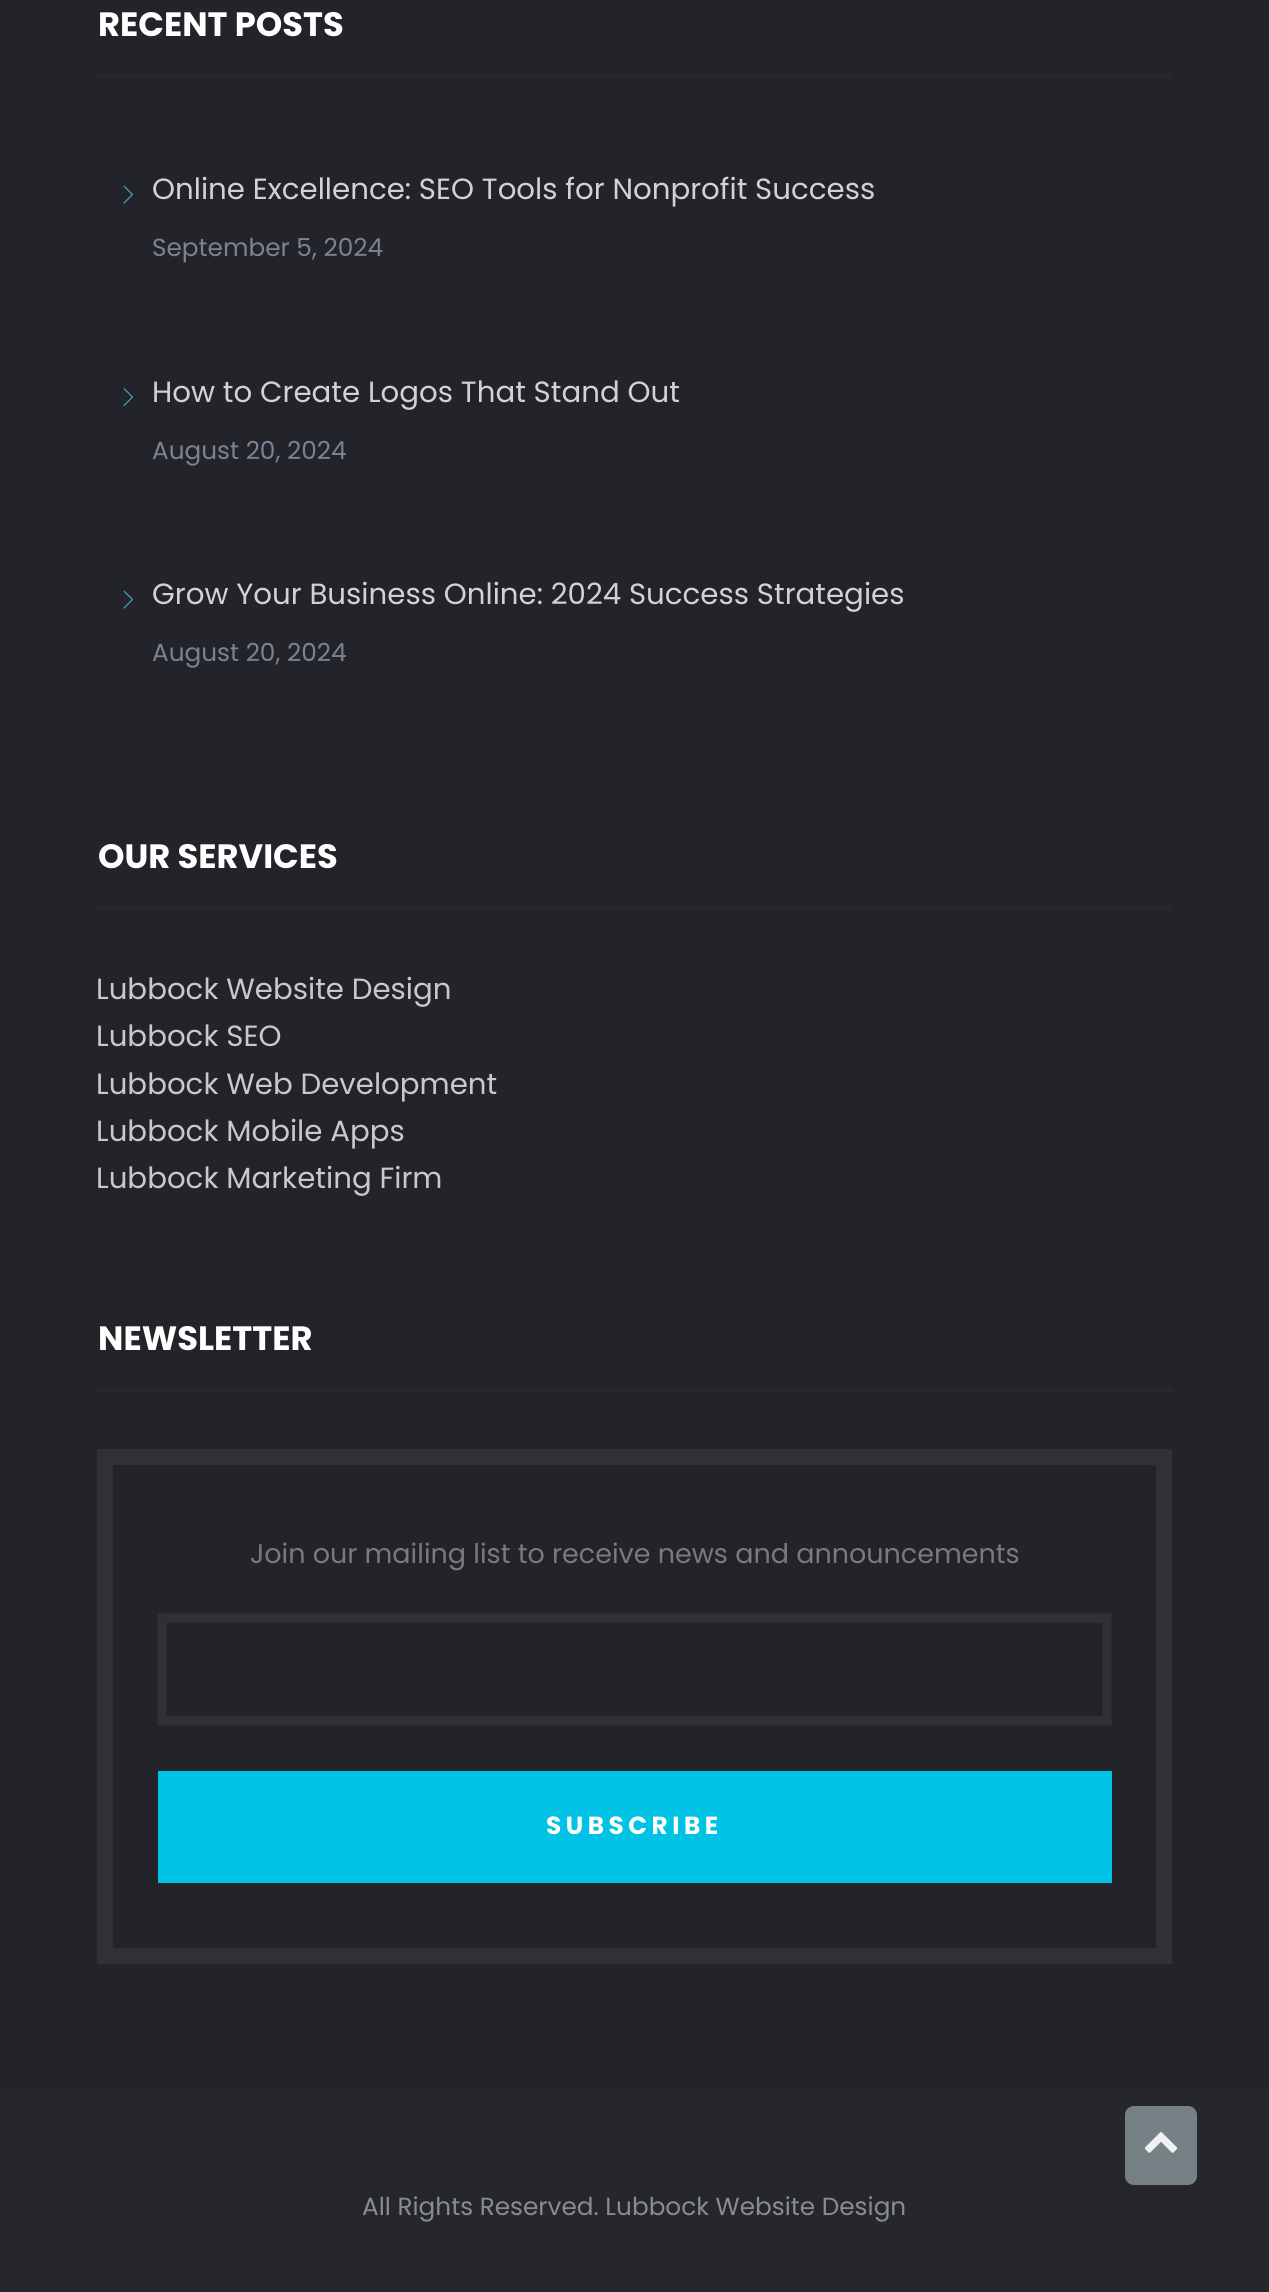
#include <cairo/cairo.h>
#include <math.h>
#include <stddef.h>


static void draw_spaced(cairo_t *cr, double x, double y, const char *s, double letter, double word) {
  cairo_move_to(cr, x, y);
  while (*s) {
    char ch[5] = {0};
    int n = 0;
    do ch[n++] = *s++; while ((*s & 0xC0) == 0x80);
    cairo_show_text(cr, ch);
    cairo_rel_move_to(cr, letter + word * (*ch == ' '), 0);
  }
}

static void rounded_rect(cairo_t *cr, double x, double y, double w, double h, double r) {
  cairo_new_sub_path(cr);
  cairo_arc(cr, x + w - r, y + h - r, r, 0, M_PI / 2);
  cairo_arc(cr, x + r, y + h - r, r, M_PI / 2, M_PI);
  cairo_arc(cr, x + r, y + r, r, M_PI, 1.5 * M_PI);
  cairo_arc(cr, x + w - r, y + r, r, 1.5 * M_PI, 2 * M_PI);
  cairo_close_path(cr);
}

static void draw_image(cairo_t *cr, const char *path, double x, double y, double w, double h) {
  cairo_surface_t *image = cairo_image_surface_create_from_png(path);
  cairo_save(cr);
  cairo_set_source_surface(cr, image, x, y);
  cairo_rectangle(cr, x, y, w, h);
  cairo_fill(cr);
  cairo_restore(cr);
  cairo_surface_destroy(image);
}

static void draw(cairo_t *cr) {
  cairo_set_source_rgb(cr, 34 / 255.0, 36 / 255.0, 41 / 255.0);
  cairo_paint(cr);
  cairo_set_source_rgb(cr, 38 / 255.0, 40 / 255.0, 45 / 255.0);
  cairo_rectangle(cr, 97, 74, 1075, 5);
  cairo_fill(cr);
  draw_image(cr, "images/1.png", 123, 185, 10, 19);
  draw_image(cr, "images/2.png", 123, 388, 10, 18);
  draw_image(cr, "images/1.png", 123, 590, 10, 19);
  cairo_rectangle(cr, 97, 905, 1075, 5);
  cairo_fill(cr);
  cairo_rectangle(cr, 97, 1388, 1075, 5);
  cairo_fill(cr);
  cairo_rectangle(cr, 105, 1457, 1059, 499);
  cairo_set_source_rgb(cr, 47 / 255.0, 49 / 255.0, 54 / 255.0);
  cairo_set_line_width(cr, 16);
  cairo_stroke(cr);
  cairo_new_path(cr);
  cairo_move_to(cr, 162, 1618);
  cairo_line_to(cr, 1107, 1618);
  cairo_line_to(cr, 1107, 1721);
  cairo_line_to(cr, 162, 1721);
  cairo_close_path(cr);
  cairo_set_line_width(cr, 9);
  cairo_stroke(cr);
  cairo_set_source_rgb(cr, 0, 194 / 255.0, 229 / 255.0);
  cairo_rectangle(cr, 158, 1771, 954, 112);
  cairo_fill(cr);
  cairo_set_source_rgb(cr, 37 / 255.0, 39 / 255.0, 45 / 255.0);
  cairo_rectangle(cr, 0, 2088, 1269, 204);
  cairo_fill(cr);
  cairo_set_source_rgb(cr, 119 / 255.0, 129 / 255.0, 133 / 255.0);
  rounded_rect(cr, 1125, 2106, 72, 79, 9);
  cairo_fill(cr);
  draw_image(cr, "images/3.png", 1144, 2132, 34, 21);
  cairo_select_font_face(cr, "Poppins", CAIRO_FONT_SLANT_NORMAL, CAIRO_FONT_WEIGHT_BOLD);
  cairo_set_font_size(cr, 33.75);
  cairo_set_source_rgb(cr, 1, 1, 1);
  cairo_move_to(cr, 98, 36);
  cairo_show_text(cr, "RECENT POSTS");
  cairo_select_font_face(cr, "Poppins", CAIRO_FONT_SLANT_NORMAL, CAIRO_FONT_WEIGHT_NORMAL);
  cairo_set_font_size(cr, 29.25);
  cairo_set_source_rgb(cr, 210 / 255.0, 210 / 255.0, 210 / 255.0);
  cairo_move_to(cr, 152, 199);
  cairo_show_text(cr, "Online Excellence: SEO Tools for Nonprofit Success");
  cairo_set_font_size(cr, 24.75);
  cairo_set_source_rgb(cr, 125 / 255.0, 129 / 255.0, 149 / 255.0);
  cairo_move_to(cr, 152, 256);
  cairo_show_text(cr, "September 5, 2024");
  cairo_set_font_size(cr, 29.25);
  cairo_set_source_rgb(cr, 210 / 255.0, 210 / 255.0, 210 / 255.0);
  cairo_move_to(cr, 152, 402);
  cairo_show_text(cr, "How to Create Logos That Stand Out");
  cairo_set_font_size(cr, 24.75);
  cairo_set_source_rgb(cr, 125 / 255.0, 129 / 255.0, 149 / 255.0);
  cairo_move_to(cr, 152, 459);
  cairo_show_text(cr, "August 20, 2024");
  cairo_set_font_size(cr, 29.25);
  cairo_set_source_rgb(cr, 210 / 255.0, 210 / 255.0, 210 / 255.0);
  cairo_move_to(cr, 152, 604);
  cairo_show_text(cr, "Grow Your Business Online: 2024 Success Strategies");
  cairo_set_font_size(cr, 24.75);
  cairo_set_source_rgb(cr, 125 / 255.0, 129 / 255.0, 149 / 255.0);
  cairo_move_to(cr, 152, 661);
  cairo_show_text(cr, "August 20, 2024");
  cairo_select_font_face(cr, "Poppins", CAIRO_FONT_SLANT_NORMAL, CAIRO_FONT_WEIGHT_BOLD);
  cairo_set_font_size(cr, 33.75);
  cairo_set_source_rgb(cr, 1, 1, 1);
  cairo_move_to(cr, 98, 868);
  cairo_show_text(cr, "OUR SERVICES");
  cairo_select_font_face(cr, "Poppins", CAIRO_FONT_SLANT_NORMAL, CAIRO_FONT_WEIGHT_NORMAL);
  cairo_set_font_size(cr, 29.25);
  cairo_set_source_rgb(cr, 200 / 255.0, 201 / 255.0, 206 / 255.0);
  cairo_move_to(cr, 96, 999);
  cairo_show_text(cr, "Lubbock Website Design");
  cairo_move_to(cr, 96, 1046);
  cairo_show_text(cr, "Lubbock SEO");
  cairo_move_to(cr, 96, 1094);
  cairo_show_text(cr, "Lubbock Web Development");
  cairo_move_to(cr, 96, 1141);
  cairo_show_text(cr, "Lubbock Mobile Apps");
  cairo_move_to(cr, 96, 1188);
  cairo_show_text(cr, "Lubbock Marketing Firm");
  cairo_select_font_face(cr, "Poppins", CAIRO_FONT_SLANT_NORMAL, CAIRO_FONT_WEIGHT_BOLD);
  cairo_set_font_size(cr, 33.75);
  cairo_set_source_rgb(cr, 1, 1, 1);
  cairo_move_to(cr, 98, 1350);
  cairo_show_text(cr, "NEWSLETTER");
  cairo_select_font_face(cr, "Poppins", CAIRO_FONT_SLANT_NORMAL, CAIRO_FONT_WEIGHT_NORMAL);
  cairo_set_font_size(cr, 27);
  cairo_set_source_rgb(cr, 122 / 255.0, 122 / 255.0, 122 / 255.0);
  cairo_move_to(cr, 250, 1563);
  cairo_show_text(cr, "Join our mailing list to receive news and announcements");
  cairo_select_font_face(cr, "Poppins", CAIRO_FONT_SLANT_NORMAL, CAIRO_FONT_WEIGHT_BOLD);
  cairo_set_font_size(cr, 24.75);
  cairo_set_source_rgb(cr, 1, 1, 1);
  draw_spaced(cr, 546, 1834, "SUBSCRIBE", 4.5, 0);
  cairo_select_font_face(cr, "Poppins", CAIRO_FONT_SLANT_NORMAL, CAIRO_FONT_WEIGHT_NORMAL);
  cairo_set_source_rgb(cr, 137 / 255.0, 139 / 255.0, 146 / 255.0);
  cairo_move_to(cr, 362, 2215);
  cairo_show_text(cr, "All Rights Reserved. Lubbock Website Design");
}

int main(void) {
  cairo_surface_t *surface = cairo_image_surface_create(CAIRO_FORMAT_RGB24, 1269, 2292);
  cairo_t *cr = cairo_create(surface);
  cairo_font_options_t *options = cairo_font_options_create();
  cairo_font_options_set_hint_metrics(options, CAIRO_HINT_METRICS_OFF);
  cairo_font_options_set_hint_style(options, CAIRO_HINT_STYLE_NONE);
  cairo_set_font_options(cr, options);
  cairo_set_miter_limit(cr, 4);
  draw(cr);
  cairo_surface_write_to_png(surface, "out.png");
  cairo_font_options_destroy(options);
  cairo_destroy(cr);
  cairo_surface_destroy(surface);
  return 0;
}
